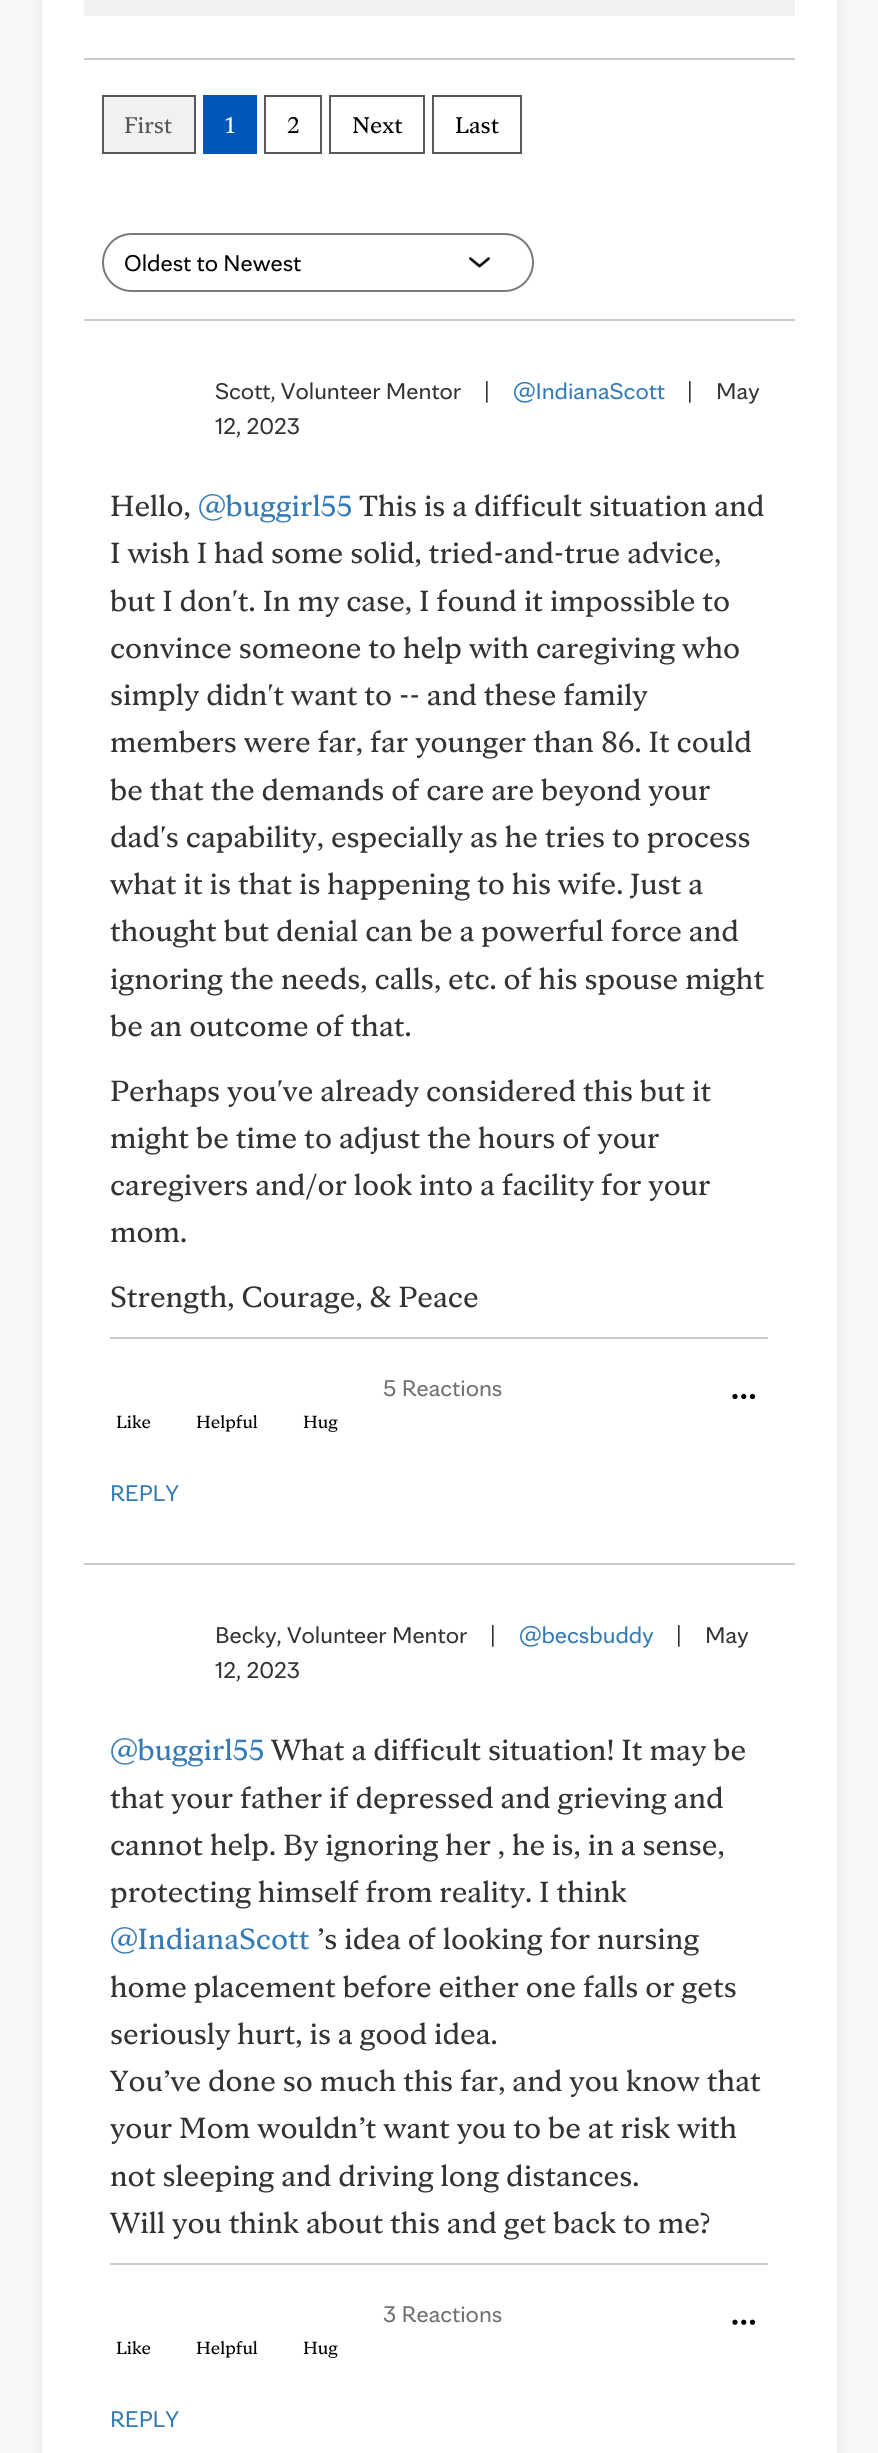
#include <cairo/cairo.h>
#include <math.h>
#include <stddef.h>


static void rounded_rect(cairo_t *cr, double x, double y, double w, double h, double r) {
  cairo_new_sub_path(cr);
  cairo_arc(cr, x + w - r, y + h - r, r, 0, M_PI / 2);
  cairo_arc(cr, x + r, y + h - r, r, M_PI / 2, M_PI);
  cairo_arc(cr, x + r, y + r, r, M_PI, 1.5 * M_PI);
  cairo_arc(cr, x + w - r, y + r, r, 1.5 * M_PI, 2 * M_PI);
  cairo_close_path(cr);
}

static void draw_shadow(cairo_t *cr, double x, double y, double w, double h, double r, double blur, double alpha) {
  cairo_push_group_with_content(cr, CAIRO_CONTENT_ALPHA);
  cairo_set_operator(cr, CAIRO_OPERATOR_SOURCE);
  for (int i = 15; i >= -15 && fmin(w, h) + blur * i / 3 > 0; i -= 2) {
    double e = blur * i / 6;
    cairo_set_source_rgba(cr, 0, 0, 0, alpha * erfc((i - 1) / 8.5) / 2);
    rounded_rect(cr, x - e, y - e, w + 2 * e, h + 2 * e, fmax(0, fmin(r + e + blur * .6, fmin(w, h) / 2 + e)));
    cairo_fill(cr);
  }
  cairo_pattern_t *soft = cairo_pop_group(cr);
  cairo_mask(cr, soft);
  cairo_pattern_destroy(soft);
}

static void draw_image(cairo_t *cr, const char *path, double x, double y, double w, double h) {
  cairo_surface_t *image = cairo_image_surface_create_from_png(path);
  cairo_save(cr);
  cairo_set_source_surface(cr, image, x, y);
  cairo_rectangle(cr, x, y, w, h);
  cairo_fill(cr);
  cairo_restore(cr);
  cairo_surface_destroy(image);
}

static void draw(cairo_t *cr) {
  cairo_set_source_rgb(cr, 248 / 255.0, 248 / 255.0, 248 / 255.0);
  cairo_paint(cr);
  cairo_set_source_rgb(cr, 0, 0, 0);
  draw_shadow(cr, 42, -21, 795, 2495, 0, 7, 0.08);
  cairo_set_source_rgb(cr, 1, 1, 1);
  cairo_rectangle(cr, 42, 0, 795, 2453);
  cairo_fill(cr);
  cairo_set_source_rgb(cr, 241 / 255.0, 241 / 255.0, 239 / 255.0);
  cairo_rectangle(cr, 84, 0, 711, 16);
  cairo_fill(cr);
  cairo_set_source_rgb(cr, 203 / 255.0, 203 / 255.0, 203 / 255.0);
  cairo_rectangle(cr, 84, 58, 711, 2);
  cairo_fill(cr);
  cairo_set_source_rgb(cr, 241 / 255.0, 241 / 255.0, 239 / 255.0);
  cairo_rectangle(cr, 103, 96, 92, 57);
  cairo_fill_preserve(cr);
  cairo_set_source_rgb(cr, 84 / 255.0, 88 / 255.0, 90 / 255.0);
  cairo_stroke(cr);
  cairo_set_source_rgb(cr, 0, 87 / 255.0, 184 / 255.0);
  cairo_rectangle(cr, 203, 95, 54, 59);
  cairo_fill(cr);
  cairo_rectangle(cr, 265, 96, 56, 57);
  cairo_set_source_rgb(cr, 84 / 255.0, 88 / 255.0, 90 / 255.0);
  cairo_stroke(cr);
  cairo_rectangle(cr, 330, 96, 94, 57);
  cairo_stroke(cr);
  cairo_rectangle(cr, 433, 96, 88, 57);
  cairo_stroke(cr);
  draw_image(cr, "images/1.png", 469, 257, 21, 11);
  rounded_rect(cr, 103, 234, 430, 57, 28.5);
  cairo_set_source_rgb(cr, 122 / 255.0, 122 / 255.0, 122 / 255.0);
  cairo_stroke(cr);
  cairo_set_source_rgb(cr, 203 / 255.0, 203 / 255.0, 203 / 255.0);
  cairo_rectangle(cr, 84, 319, 711, 2);
  cairo_fill(cr);
  cairo_rectangle(cr, 110, 1337, 658, 2);
  cairo_fill(cr);
  draw_image(cr, "images/2.png", 732, 1393, 24, 7);
  cairo_rectangle(cr, 84, 1563, 711, 2);
  cairo_fill(cr);
  cairo_rectangle(cr, 110, 2263, 658, 2);
  cairo_fill(cr);
  draw_image(cr, "images/3.png", 732, 2319, 24, 6);
  cairo_select_font_face(cr, "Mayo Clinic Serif", CAIRO_FONT_SLANT_NORMAL, CAIRO_FONT_WEIGHT_NORMAL);
  cairo_set_font_size(cr, 24.5);
  cairo_set_source_rgb(cr, 84 / 255.0, 88 / 255.0, 90 / 255.0);
  cairo_move_to(cr, 124, 133);
  cairo_show_text(cr, "First");
  cairo_set_source_rgb(cr, 1, 1, 1);
  cairo_move_to(cr, 225, 133);
  cairo_show_text(cr, "1");
  cairo_set_source_rgb(cr, 0, 0, 0);
  cairo_move_to(cr, 287, 133);
  cairo_show_text(cr, "2");
  cairo_move_to(cr, 352, 133);
  cairo_show_text(cr, "Next");
  cairo_move_to(cr, 455, 133);
  cairo_show_text(cr, "Last");
  cairo_select_font_face(cr, "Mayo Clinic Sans", CAIRO_FONT_SLANT_NORMAL, CAIRO_FONT_WEIGHT_NORMAL);
  cairo_move_to(cr, 124, 271);
  cairo_show_text(cr, "Oldest to Newest");
  cairo_set_source_rgb(cr, 51 / 255.0, 51 / 255.0, 51 / 255.0);
  cairo_move_to(cr, 215, 399);
  cairo_show_text(cr, "Scott, Volunteer Mentor");
  cairo_move_to(cr, 484, 399);
  cairo_show_text(cr, "|");
  cairo_set_source_rgb(cr, 51 / 255.0, 122 / 255.0, 183 / 255.0);
  cairo_move_to(cr, 513, 399);
  cairo_show_text(cr, "@IndianaScott");
  cairo_set_source_rgb(cr, 51 / 255.0, 51 / 255.0, 51 / 255.0);
  cairo_move_to(cr, 687, 399);
  cairo_show_text(cr, "|");
  cairo_move_to(cr, 716, 399);
  cairo_show_text(cr, "May");
  cairo_move_to(cr, 215, 434);
  cairo_show_text(cr, "12, 2023");
  cairo_select_font_face(cr, "Mayo Clinic Serif", CAIRO_FONT_SLANT_NORMAL, CAIRO_FONT_WEIGHT_NORMAL);
  cairo_set_font_size(cr, 31.5);
  cairo_move_to(cr, 110, 516);
  cairo_show_text(cr, "Hello,");
  cairo_set_source_rgb(cr, 51 / 255.0, 122 / 255.0, 183 / 255.0);
  cairo_move_to(cr, 198, 516);
  cairo_show_text(cr, "@buggirl55");
  cairo_set_source_rgb(cr, 51 / 255.0, 51 / 255.0, 51 / 255.0);
  cairo_move_to(cr, 359, 516);
  cairo_show_text(cr, "This is a difficult situation and");
  cairo_move_to(cr, 110, 563);
  cairo_show_text(cr, "I wish I had some solid, tried-and-true advice,");
  cairo_move_to(cr, 110, 611);
  cairo_show_text(cr, "but I don't. In my case, I found it impossible to");
  cairo_move_to(cr, 110, 658);
  cairo_show_text(cr, "convince someone to help with caregiving who");
  cairo_move_to(cr, 110, 705);
  cairo_show_text(cr, "simply didn't want to -- and these family");
  cairo_move_to(cr, 110, 752);
  cairo_show_text(cr, "members were far, far younger than 86. It could");
  cairo_move_to(cr, 110, 800);
  cairo_show_text(cr, "be that the demands of care are beyond your");
  cairo_move_to(cr, 110, 847);
  cairo_show_text(cr, "dad's capability, especially as he tries to process");
  cairo_move_to(cr, 110, 894);
  cairo_show_text(cr, "what it is that is happening to his wife. Just a");
  cairo_move_to(cr, 110, 941);
  cairo_show_text(cr, "thought but denial can be a powerful force and");
  cairo_move_to(cr, 110, 989);
  cairo_show_text(cr, "ignoring the needs, calls, etc. of his spouse might");
  cairo_move_to(cr, 110, 1036);
  cairo_show_text(cr, "be an outcome of that.");
  cairo_move_to(cr, 110, 1101);
  cairo_show_text(cr, "Perhaps you've already considered this but it");
  cairo_move_to(cr, 110, 1148);
  cairo_show_text(cr, "might be time to adjust the hours of your");
  cairo_move_to(cr, 110, 1195);
  cairo_show_text(cr, "caregivers and/or look into a facility for your");
  cairo_move_to(cr, 110, 1242);
  cairo_show_text(cr, "mom.");
  cairo_move_to(cr, 110, 1307);
  cairo_show_text(cr, "Strength, Courage, & Peace");
  cairo_select_font_face(cr, "Mayo Clinic Sans", CAIRO_FONT_SLANT_NORMAL, CAIRO_FONT_WEIGHT_NORMAL);
  cairo_set_font_size(cr, 24.5);
  cairo_set_source_rgb(cr, 113 / 255.0, 113 / 255.0, 113 / 255.0);
  cairo_move_to(cr, 383, 1396);
  cairo_show_text(cr, "5 Reactions");
  cairo_select_font_face(cr, "Mayo Clinic Serif", CAIRO_FONT_SLANT_NORMAL, CAIRO_FONT_WEIGHT_NORMAL);
  cairo_set_font_size(cr, 19);
  cairo_set_source_rgb(cr, 0, 0, 0);
  cairo_move_to(cr, 116, 1428);
  cairo_show_text(cr, "Like");
  cairo_move_to(cr, 196, 1428);
  cairo_show_text(cr, "Helpful");
  cairo_move_to(cr, 303, 1428);
  cairo_show_text(cr, "Hug");
  cairo_select_font_face(cr, "Mayo Clinic Sans", CAIRO_FONT_SLANT_NORMAL, CAIRO_FONT_WEIGHT_NORMAL);
  cairo_set_font_size(cr, 24.5);
  cairo_set_source_rgb(cr, 51 / 255.0, 122 / 255.0, 183 / 255.0);
  cairo_move_to(cr, 110, 1501);
  cairo_show_text(cr, "REPLY");
  cairo_set_source_rgb(cr, 51 / 255.0, 51 / 255.0, 51 / 255.0);
  cairo_move_to(cr, 215, 1643);
  cairo_show_text(cr, "Becky, Volunteer Mentor");
  cairo_move_to(cr, 490, 1643);
  cairo_show_text(cr, "|");
  cairo_set_source_rgb(cr, 51 / 255.0, 122 / 255.0, 183 / 255.0);
  cairo_move_to(cr, 519, 1643);
  cairo_show_text(cr, "@becsbuddy");
  cairo_set_source_rgb(cr, 51 / 255.0, 51 / 255.0, 51 / 255.0);
  cairo_move_to(cr, 676, 1643);
  cairo_show_text(cr, "|");
  cairo_move_to(cr, 705, 1643);
  cairo_show_text(cr, "May");
  cairo_move_to(cr, 215, 1678);
  cairo_show_text(cr, "12, 2023");
  cairo_select_font_face(cr, "Mayo Clinic Serif", CAIRO_FONT_SLANT_NORMAL, CAIRO_FONT_WEIGHT_NORMAL);
  cairo_set_font_size(cr, 31.5);
  cairo_set_source_rgb(cr, 51 / 255.0, 122 / 255.0, 183 / 255.0);
  cairo_move_to(cr, 110, 1760);
  cairo_show_text(cr, "@buggirl55");
  cairo_set_source_rgb(cr, 51 / 255.0, 51 / 255.0, 51 / 255.0);
  cairo_move_to(cr, 271, 1760);
  cairo_show_text(cr, "What a difficult situation! It may be");
  cairo_move_to(cr, 110, 1808);
  cairo_show_text(cr, "that your father if depressed and grieving and");
  cairo_move_to(cr, 110, 1855);
  cairo_show_text(cr, "cannot help. By ignoring her , he is, in a sense,");
  cairo_move_to(cr, 110, 1902);
  cairo_show_text(cr, "protecting himself from reality. I think");
  cairo_set_source_rgb(cr, 51 / 255.0, 122 / 255.0, 183 / 255.0);
  cairo_move_to(cr, 110, 1949);
  cairo_show_text(cr, "@IndianaScott");
  cairo_set_source_rgb(cr, 51 / 255.0, 51 / 255.0, 51 / 255.0);
  cairo_move_to(cr, 317, 1949);
  cairo_show_text(cr, "’s idea of looking for nursing");
  cairo_move_to(cr, 110, 1997);
  cairo_show_text(cr, "home placement before either one falls or gets");
  cairo_move_to(cr, 110, 2044);
  cairo_show_text(cr, "seriously hurt, is a good idea.");
  cairo_move_to(cr, 110, 2091);
  cairo_show_text(cr, "You’ve done so much this far, and you know that");
  cairo_move_to(cr, 110, 2138);
  cairo_show_text(cr, "your Mom wouldn’t want you to be at risk with");
  cairo_move_to(cr, 110, 2186);
  cairo_show_text(cr, "not sleeping and driving long distances.");
  cairo_move_to(cr, 110, 2233);
  cairo_show_text(cr, "Will you think about this and get back to me?");
  cairo_select_font_face(cr, "Mayo Clinic Sans", CAIRO_FONT_SLANT_NORMAL, CAIRO_FONT_WEIGHT_NORMAL);
  cairo_set_font_size(cr, 24.5);
  cairo_set_source_rgb(cr, 113 / 255.0, 113 / 255.0, 113 / 255.0);
  cairo_move_to(cr, 383, 2322);
  cairo_show_text(cr, "3 Reactions");
  cairo_select_font_face(cr, "Mayo Clinic Serif", CAIRO_FONT_SLANT_NORMAL, CAIRO_FONT_WEIGHT_NORMAL);
  cairo_set_font_size(cr, 19);
  cairo_set_source_rgb(cr, 0, 0, 0);
  cairo_move_to(cr, 116, 2354);
  cairo_show_text(cr, "Like");
  cairo_move_to(cr, 196, 2354);
  cairo_show_text(cr, "Helpful");
  cairo_move_to(cr, 303, 2354);
  cairo_show_text(cr, "Hug");
  cairo_select_font_face(cr, "Mayo Clinic Sans", CAIRO_FONT_SLANT_NORMAL, CAIRO_FONT_WEIGHT_NORMAL);
  cairo_set_font_size(cr, 24.5);
  cairo_set_source_rgb(cr, 51 / 255.0, 122 / 255.0, 183 / 255.0);
  cairo_move_to(cr, 110, 2427);
  cairo_show_text(cr, "REPLY");
}

int main(void) {
  cairo_surface_t *surface = cairo_image_surface_create(CAIRO_FORMAT_RGB24, 878, 2453);
  cairo_t *cr = cairo_create(surface);
  cairo_font_options_t *options = cairo_font_options_create();
  cairo_font_options_set_hint_metrics(options, CAIRO_HINT_METRICS_OFF);
  cairo_font_options_set_hint_style(options, CAIRO_HINT_STYLE_NONE);
  cairo_set_font_options(cr, options);
  cairo_set_miter_limit(cr, 4);
  draw(cr);
  cairo_surface_write_to_png(surface, "out.png");
  cairo_font_options_destroy(options);
  cairo_destroy(cr);
  cairo_surface_destroy(surface);
  return 0;
}
